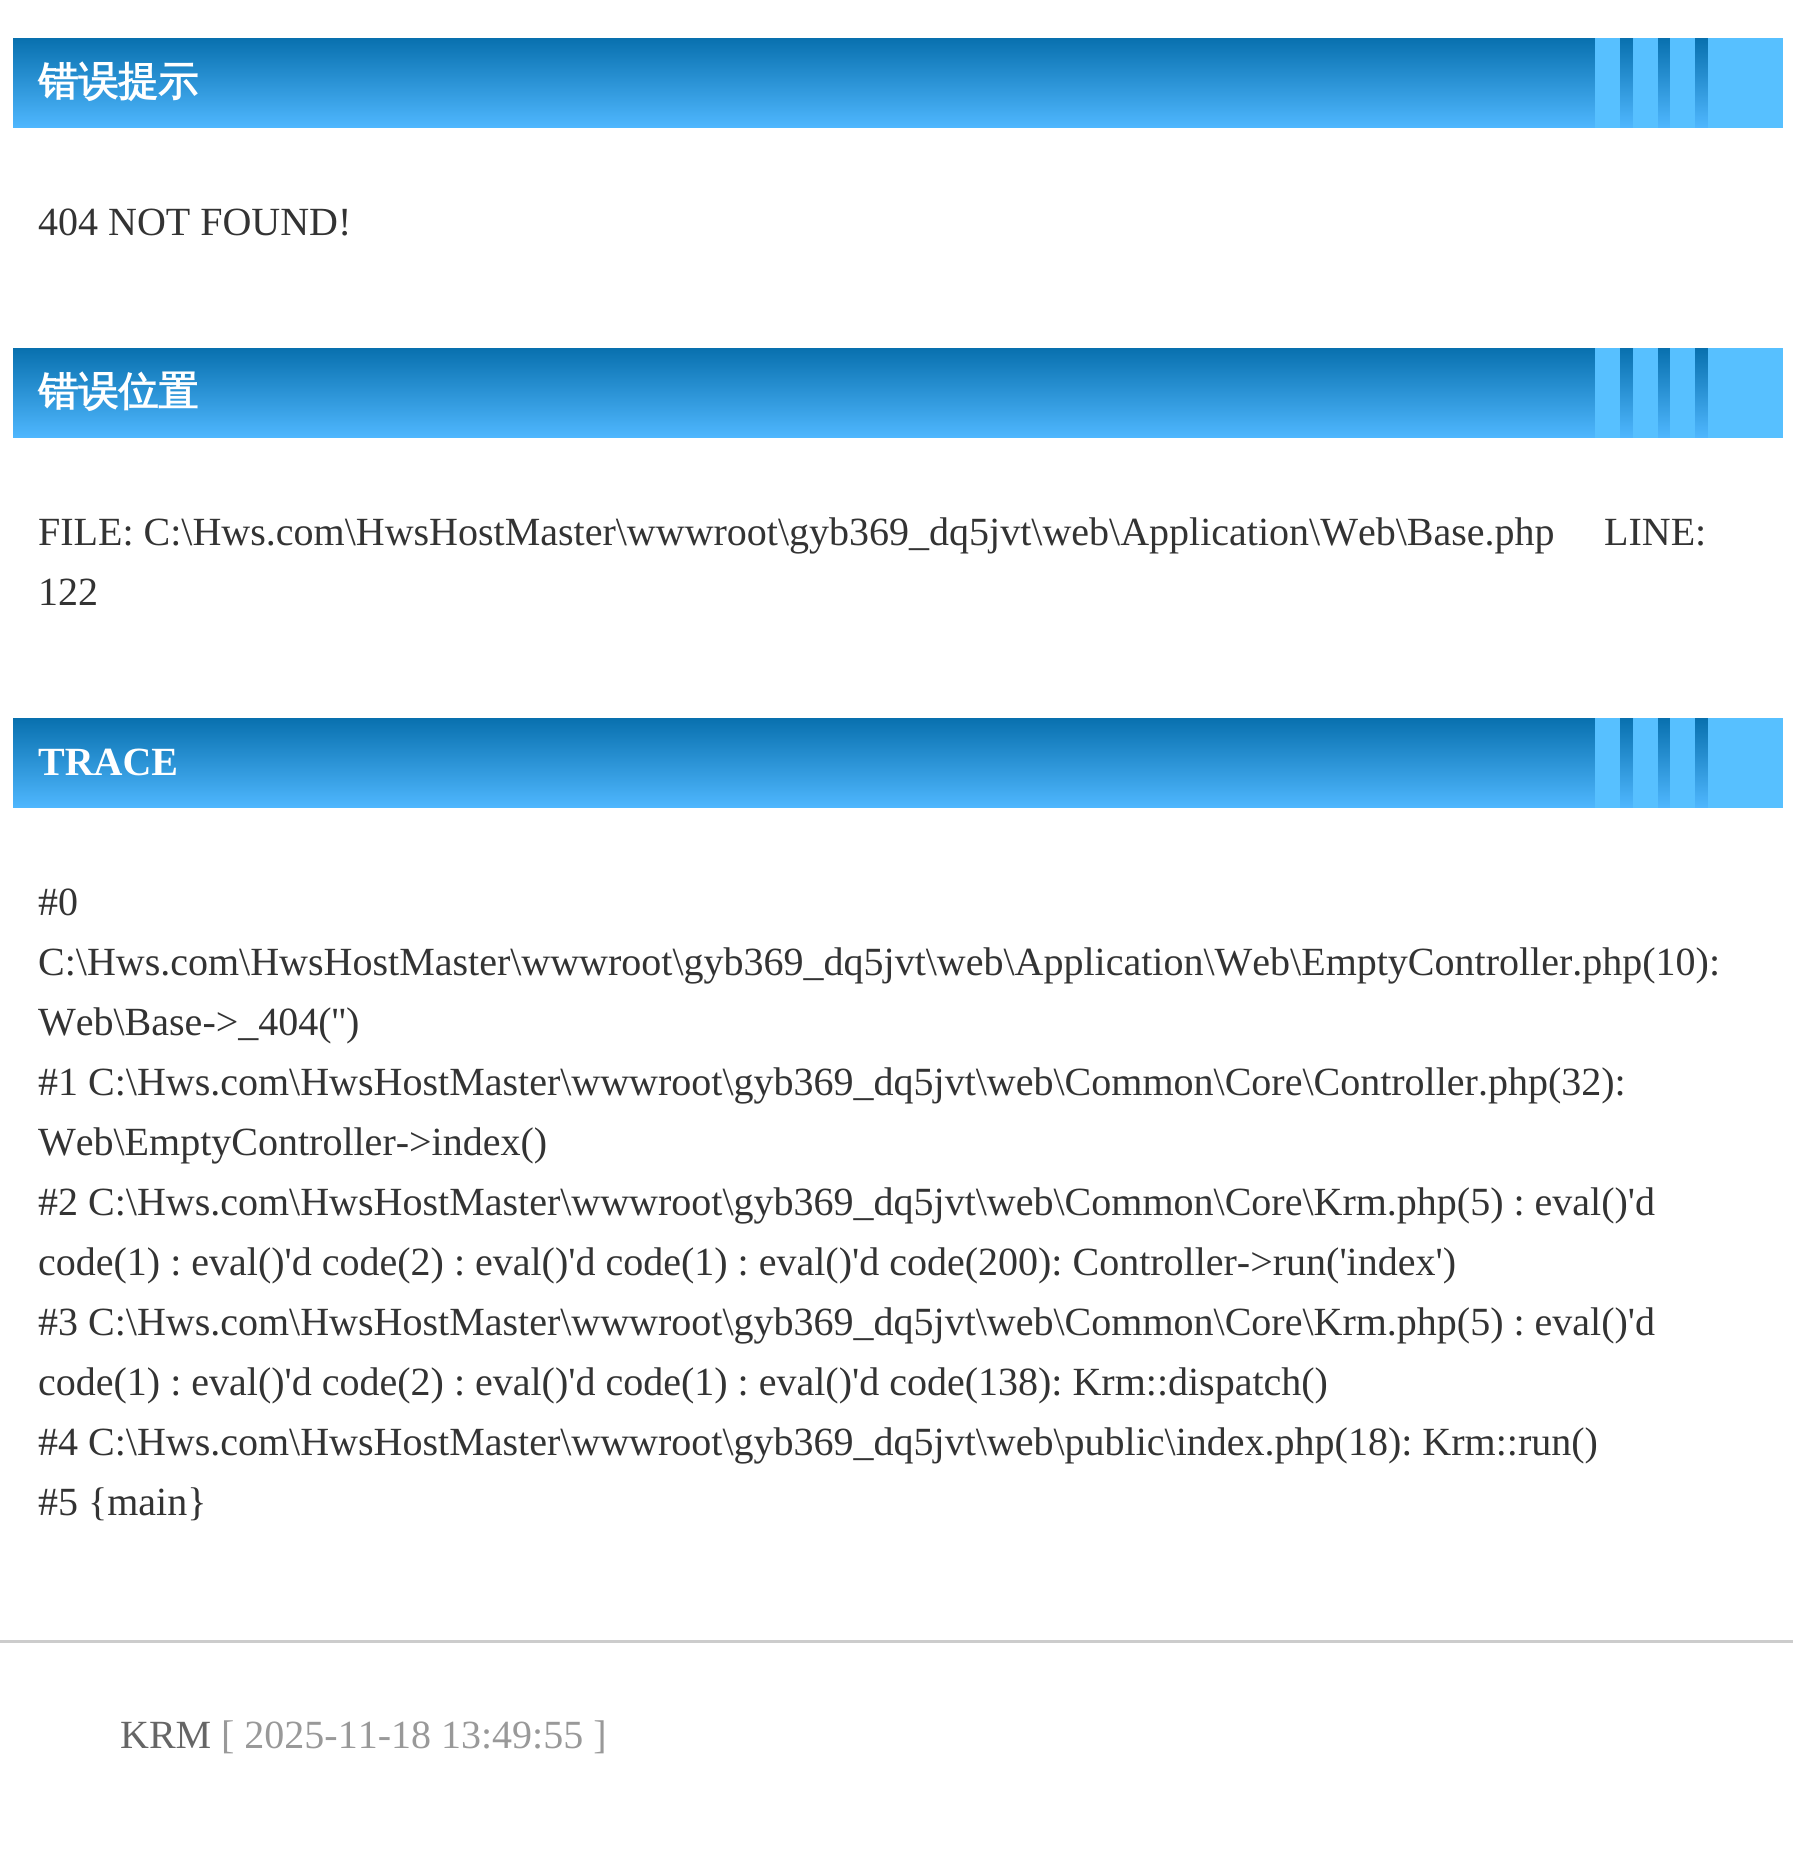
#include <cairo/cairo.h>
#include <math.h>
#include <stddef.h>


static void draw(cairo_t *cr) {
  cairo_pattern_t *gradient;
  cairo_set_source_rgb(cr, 1, 1, 1);
  cairo_paint(cr);
  gradient = cairo_pattern_create_linear(898, 37, 898, 128);
  cairo_pattern_add_color_stop_rgba(gradient, 0, 7 / 255.0, 111 / 255.0, 173 / 255.0, 1);
  cairo_pattern_add_color_stop_rgba(gradient, 1, 79 / 255.0, 183 / 255.0, 254 / 255.0, 1);
  cairo_set_source(cr, gradient);
  cairo_pattern_destroy(gradient);
  cairo_rectangle(cr, 13, 38, 1695, 90);
  cairo_fill(cr);
  cairo_set_source_rgb(cr, 87 / 255.0, 192 / 255.0, 1);
  cairo_rectangle(cr, 1595, 38, 25, 90);
  cairo_fill(cr);
  cairo_rectangle(cr, 1633, 38, 25, 90);
  cairo_fill(cr);
  cairo_rectangle(cr, 1670, 38, 25, 90);
  cairo_fill(cr);
  cairo_rectangle(cr, 1708, 38, 75, 90);
  cairo_fill(cr);
  gradient = cairo_pattern_create_linear(898, 347, 898, 438);
  cairo_pattern_add_color_stop_rgba(gradient, 0, 7 / 255.0, 111 / 255.0, 173 / 255.0, 1);
  cairo_pattern_add_color_stop_rgba(gradient, 1, 79 / 255.0, 183 / 255.0, 254 / 255.0, 1);
  cairo_set_source(cr, gradient);
  cairo_pattern_destroy(gradient);
  cairo_rectangle(cr, 13, 348, 1695, 90);
  cairo_fill(cr);
  cairo_set_source_rgb(cr, 87 / 255.0, 192 / 255.0, 1);
  cairo_rectangle(cr, 1595, 348, 25, 90);
  cairo_fill(cr);
  cairo_rectangle(cr, 1633, 348, 25, 90);
  cairo_fill(cr);
  cairo_rectangle(cr, 1670, 348, 25, 90);
  cairo_fill(cr);
  cairo_rectangle(cr, 1708, 348, 75, 90);
  cairo_fill(cr);
  gradient = cairo_pattern_create_linear(898, 717, 898, 808);
  cairo_pattern_add_color_stop_rgba(gradient, 0, 7 / 255.0, 111 / 255.0, 173 / 255.0, 1);
  cairo_pattern_add_color_stop_rgba(gradient, 1, 79 / 255.0, 183 / 255.0, 254 / 255.0, 1);
  cairo_set_source(cr, gradient);
  cairo_pattern_destroy(gradient);
  cairo_rectangle(cr, 13, 718, 1695, 90);
  cairo_fill(cr);
  cairo_set_source_rgb(cr, 87 / 255.0, 192 / 255.0, 1);
  cairo_rectangle(cr, 1595, 718, 25, 90);
  cairo_fill(cr);
  cairo_rectangle(cr, 1633, 718, 25, 90);
  cairo_fill(cr);
  cairo_rectangle(cr, 1670, 718, 25, 90);
  cairo_fill(cr);
  cairo_rectangle(cr, 1708, 718, 75, 90);
  cairo_fill(cr);
  cairo_set_source_rgb(cr, 204 / 255.0, 204 / 255.0, 204 / 255.0);
  cairo_rectangle(cr, 0, 1640, 1793, 3);
  cairo_fill(cr);
  cairo_select_font_face(cr, "WenQuanYi Zen Hei", CAIRO_FONT_SLANT_NORMAL, CAIRO_FONT_WEIGHT_BOLD);
  cairo_set_font_size(cr, 40);
  cairo_set_source_rgb(cr, 1, 1, 1);
  cairo_move_to(cr, 38, 95);
  cairo_show_text(cr, "错误提示");
  cairo_select_font_face(cr, "Liberation Serif", CAIRO_FONT_SLANT_NORMAL, CAIRO_FONT_WEIGHT_NORMAL);
  cairo_set_source_rgb(cr, 51 / 255.0, 51 / 255.0, 51 / 255.0);
  cairo_move_to(cr, 38, 235);
  cairo_show_text(cr, "404 NOT FOUND!");
  cairo_select_font_face(cr, "WenQuanYi Zen Hei", CAIRO_FONT_SLANT_NORMAL, CAIRO_FONT_WEIGHT_BOLD);
  cairo_set_source_rgb(cr, 1, 1, 1);
  cairo_move_to(cr, 38, 405);
  cairo_show_text(cr, "错误位置");
  cairo_select_font_face(cr, "Liberation Serif", CAIRO_FONT_SLANT_NORMAL, CAIRO_FONT_WEIGHT_NORMAL);
  cairo_set_source_rgb(cr, 51 / 255.0, 51 / 255.0, 51 / 255.0);
  cairo_move_to(cr, 38, 545);
  cairo_show_text(cr, "FILE: C:\\Hws.com\\HwsHostMaster\\wwwroot\\gyb369_dq5jvt\\web\\Application\\Web\\Base.php");
  cairo_move_to(cr, 1604, 545);
  cairo_show_text(cr, "LINE:");
  cairo_move_to(cr, 38, 605);
  cairo_show_text(cr, "122");
  cairo_select_font_face(cr, "Liberation Serif", CAIRO_FONT_SLANT_NORMAL, CAIRO_FONT_WEIGHT_BOLD);
  cairo_set_source_rgb(cr, 1, 1, 1);
  cairo_move_to(cr, 38, 775);
  cairo_show_text(cr, "TRACE");
  cairo_select_font_face(cr, "Liberation Serif", CAIRO_FONT_SLANT_NORMAL, CAIRO_FONT_WEIGHT_NORMAL);
  cairo_set_source_rgb(cr, 51 / 255.0, 51 / 255.0, 51 / 255.0);
  cairo_move_to(cr, 38, 915);
  cairo_show_text(cr, "#0");
  cairo_move_to(cr, 38, 975);
  cairo_show_text(cr, "C:\\Hws.com\\HwsHostMaster\\wwwroot\\gyb369_dq5jvt\\web\\Application\\Web\\EmptyController.php(10):");
  cairo_move_to(cr, 38, 1035);
  cairo_show_text(cr, "Web\\Base->_404('')");
  cairo_move_to(cr, 38, 1095);
  cairo_show_text(cr, "#1 C:\\Hws.com\\HwsHostMaster\\wwwroot\\gyb369_dq5jvt\\web\\Common\\Core\\Controller.php(32):");
  cairo_move_to(cr, 38, 1155);
  cairo_show_text(cr, "Web\\EmptyController->index()");
  cairo_move_to(cr, 38, 1215);
  cairo_show_text(cr, "#2 C:\\Hws.com\\HwsHostMaster\\wwwroot\\gyb369_dq5jvt\\web\\Common\\Core\\Krm.php(5) : eval()'d");
  cairo_move_to(cr, 38, 1275);
  cairo_show_text(cr, "code(1) : eval()'d code(2) : eval()'d code(1) : eval()'d code(200): Controller->run('index')");
  cairo_move_to(cr, 38, 1335);
  cairo_show_text(cr, "#3 C:\\Hws.com\\HwsHostMaster\\wwwroot\\gyb369_dq5jvt\\web\\Common\\Core\\Krm.php(5) : eval()'d");
  cairo_move_to(cr, 38, 1395);
  cairo_show_text(cr, "code(1) : eval()'d code(2) : eval()'d code(1) : eval()'d code(138): Krm::dispatch()");
  cairo_move_to(cr, 38, 1455);
  cairo_show_text(cr, "#4 C:\\Hws.com\\HwsHostMaster\\wwwroot\\gyb369_dq5jvt\\web\\public\\index.php(18): Krm::run()");
  cairo_move_to(cr, 38, 1515);
  cairo_show_text(cr, "#5 {main}");
  cairo_set_source_rgb(cr, 102 / 255.0, 102 / 255.0, 102 / 255.0);
  cairo_move_to(cr, 120, 1748);
  cairo_show_text(cr, "KRM");
  cairo_set_source_rgb(cr, 153 / 255.0, 153 / 255.0, 153 / 255.0);
  cairo_move_to(cr, 221, 1748);
  cairo_show_text(cr, "[ 2025-11-18 13:49:55 ]");
}

int main(void) {
  cairo_surface_t *surface = cairo_image_surface_create(CAIRO_FORMAT_RGB24, 1793, 1855);
  cairo_t *cr = cairo_create(surface);
  cairo_font_options_t *options = cairo_font_options_create();
  cairo_font_options_set_hint_metrics(options, CAIRO_HINT_METRICS_OFF);
  cairo_font_options_set_hint_style(options, CAIRO_HINT_STYLE_NONE);
  cairo_set_font_options(cr, options);
  cairo_set_miter_limit(cr, 4);
  draw(cr);
  cairo_surface_write_to_png(surface, "out.png");
  cairo_font_options_destroy(options);
  cairo_destroy(cr);
  cairo_surface_destroy(surface);
  return 0;
}
